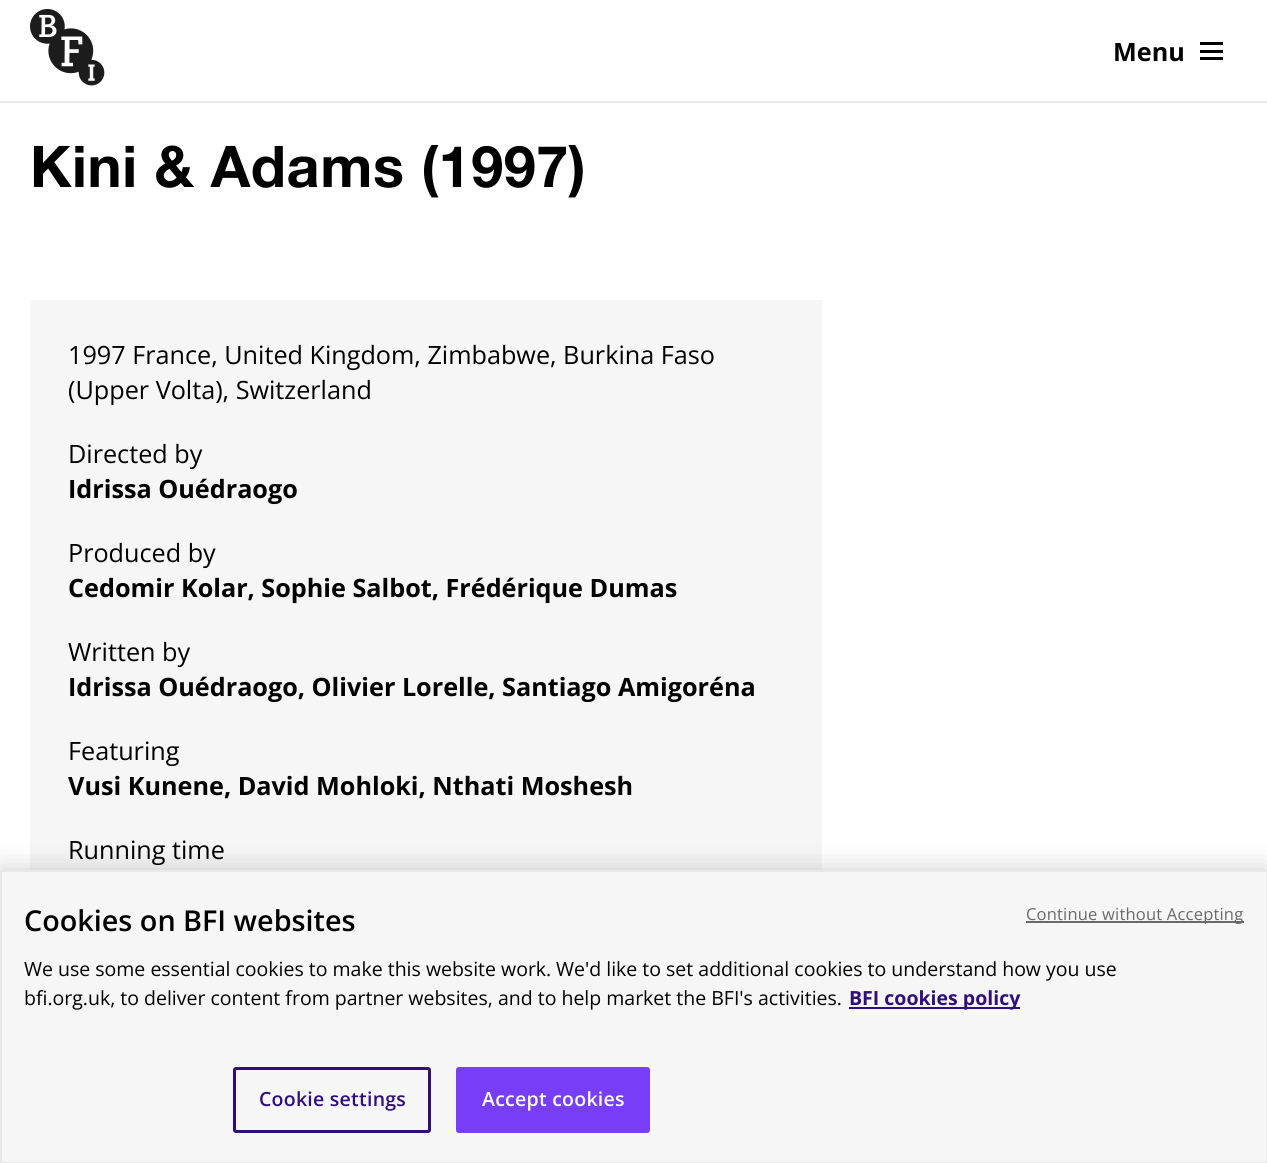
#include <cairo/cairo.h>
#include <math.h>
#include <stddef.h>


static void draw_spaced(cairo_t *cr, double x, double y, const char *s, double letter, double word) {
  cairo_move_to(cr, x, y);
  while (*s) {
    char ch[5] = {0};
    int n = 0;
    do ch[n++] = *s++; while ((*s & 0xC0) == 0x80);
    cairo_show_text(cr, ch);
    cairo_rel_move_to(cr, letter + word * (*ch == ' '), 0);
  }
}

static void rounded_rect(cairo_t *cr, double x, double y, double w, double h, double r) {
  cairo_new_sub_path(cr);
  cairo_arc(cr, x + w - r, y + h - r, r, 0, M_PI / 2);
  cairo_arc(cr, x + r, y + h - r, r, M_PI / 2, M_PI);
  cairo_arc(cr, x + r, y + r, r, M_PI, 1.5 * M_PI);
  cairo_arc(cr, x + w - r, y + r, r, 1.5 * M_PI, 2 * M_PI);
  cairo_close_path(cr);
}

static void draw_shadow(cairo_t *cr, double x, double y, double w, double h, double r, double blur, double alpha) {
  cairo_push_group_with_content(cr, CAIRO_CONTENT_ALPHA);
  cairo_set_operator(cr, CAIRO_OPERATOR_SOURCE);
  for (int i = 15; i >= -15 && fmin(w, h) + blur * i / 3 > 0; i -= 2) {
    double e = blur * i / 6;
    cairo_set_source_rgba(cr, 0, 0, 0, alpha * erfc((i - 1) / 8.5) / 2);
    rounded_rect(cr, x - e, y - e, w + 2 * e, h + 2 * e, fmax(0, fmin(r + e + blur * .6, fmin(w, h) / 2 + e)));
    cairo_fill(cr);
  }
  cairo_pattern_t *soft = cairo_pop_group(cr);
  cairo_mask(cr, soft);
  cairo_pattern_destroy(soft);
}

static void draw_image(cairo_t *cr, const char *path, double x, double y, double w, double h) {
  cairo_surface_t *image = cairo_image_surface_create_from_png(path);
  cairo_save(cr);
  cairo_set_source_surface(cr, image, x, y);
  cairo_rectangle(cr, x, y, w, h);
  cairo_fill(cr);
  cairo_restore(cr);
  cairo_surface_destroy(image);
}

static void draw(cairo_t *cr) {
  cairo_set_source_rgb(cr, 1, 1, 1);
  cairo_paint(cr);
  cairo_set_source_rgb(cr, 233 / 255.0, 232 / 255.0, 232 / 255.0);
  cairo_rectangle(cr, 0, 101, 1267, 2);
  cairo_fill(cr);
  draw_image(cr, "images/1.png", 30, 9, 75, 77);
  cairo_set_source_rgb(cr, 0, 0, 0);
  cairo_rectangle(cr, 1200, 42, 23, 3);
  cairo_fill(cr);
  cairo_rectangle(cr, 1200, 50, 23, 3);
  cairo_fill(cr);
  cairo_rectangle(cr, 1200, 57, 23, 3);
  cairo_fill(cr);
  cairo_set_source_rgb(cr, 246 / 255.0, 246 / 255.0, 246 / 255.0);
  cairo_rectangle(cr, 30, 300, 792, 570);
  cairo_fill(cr);
  cairo_set_source_rgb(cr, 0, 0, 0);
  draw_shadow(cr, 0, 870, 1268, 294, 0, 13.5, 0.2);
  cairo_set_source_rgb(cr, 246 / 255.0, 246 / 255.0, 246 / 255.0);
  cairo_rectangle(cr, 1, 871, 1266, 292);
  cairo_fill_preserve(cr);
  cairo_set_source_rgb(cr, 233 / 255.0, 232 / 255.0, 232 / 255.0);
  cairo_stroke(cr);
  cairo_set_source_rgb(cr, 49 / 255.0, 15 / 255.0, 122 / 255.0);
  cairo_rectangle(cr, 849, 1007, 171, 2);
  cairo_fill(cr);
  rounded_rect(cr, 234.5, 1068.5, 195, 63, 1.5);
  cairo_set_line_width(cr, 3);
  cairo_stroke(cr);
  cairo_set_source_rgb(cr, 120 / 255.0, 61 / 255.0, 246 / 255.0);
  rounded_rect(cr, 457.5, 1068.5, 191, 63, 1.5);
  cairo_fill_preserve(cr);
  cairo_stroke(cr);
  cairo_set_source_rgb(cr, 105 / 255.0, 105 / 255.0, 105 / 255.0);
  cairo_rectangle(cr, 1026, 921, 218, 2);
  cairo_fill(cr);
  cairo_select_font_face(cr, "Open Sans", CAIRO_FONT_SLANT_NORMAL, CAIRO_FONT_WEIGHT_BOLD);
  cairo_set_font_size(cr, 25.2);
  cairo_set_source_rgb(cr, 0, 0, 0);
  cairo_move_to(cr, 1113, 61);
  cairo_show_text(cr, "Menu");
  cairo_select_font_face(cr, "Helvetica Neue", CAIRO_FONT_SLANT_NORMAL, CAIRO_FONT_WEIGHT_BOLD);
  cairo_set_font_size(cr, 57.5);
  draw_spaced(cr, 30, 187, "Kini & Adams (1997)", 0.6, 0);
  cairo_select_font_face(cr, "Open Sans", CAIRO_FONT_SLANT_NORMAL, CAIRO_FONT_WEIGHT_NORMAL);
  cairo_set_font_size(cr, 25.2);
  cairo_move_to(cr, 68, 364);
  cairo_show_text(cr, "1997 France, United Kingdom, Zimbabwe, Burkina Faso");
  cairo_move_to(cr, 68, 399);
  cairo_show_text(cr, "(Upper Volta), Switzerland");
  cairo_move_to(cr, 68, 463);
  cairo_show_text(cr, "Directed by");
  cairo_select_font_face(cr, "Open Sans", CAIRO_FONT_SLANT_NORMAL, CAIRO_FONT_WEIGHT_BOLD);
  cairo_move_to(cr, 68, 498);
  cairo_show_text(cr, "Idrissa Ouédraogo");
  cairo_select_font_face(cr, "Open Sans", CAIRO_FONT_SLANT_NORMAL, CAIRO_FONT_WEIGHT_NORMAL);
  cairo_move_to(cr, 68, 562);
  cairo_show_text(cr, "Produced by");
  cairo_select_font_face(cr, "Open Sans", CAIRO_FONT_SLANT_NORMAL, CAIRO_FONT_WEIGHT_BOLD);
  cairo_move_to(cr, 68, 597);
  cairo_show_text(cr, "Cedomir Kolar, Sophie Salbot, Frédérique Dumas");
  cairo_select_font_face(cr, "Open Sans", CAIRO_FONT_SLANT_NORMAL, CAIRO_FONT_WEIGHT_NORMAL);
  cairo_move_to(cr, 68, 661);
  cairo_show_text(cr, "Written by");
  cairo_select_font_face(cr, "Open Sans", CAIRO_FONT_SLANT_NORMAL, CAIRO_FONT_WEIGHT_BOLD);
  cairo_move_to(cr, 68, 696);
  cairo_show_text(cr, "Idrissa Ouédraogo, Olivier Lorelle, Santiago Amigoréna");
  cairo_select_font_face(cr, "Open Sans", CAIRO_FONT_SLANT_NORMAL, CAIRO_FONT_WEIGHT_NORMAL);
  cairo_move_to(cr, 68, 760);
  cairo_show_text(cr, "Featuring");
  cairo_select_font_face(cr, "Open Sans", CAIRO_FONT_SLANT_NORMAL, CAIRO_FONT_WEIGHT_BOLD);
  cairo_move_to(cr, 68, 795);
  cairo_show_text(cr, "Vusi Kunene, David Mohloki, Nthati Moshesh");
  cairo_select_font_face(cr, "Open Sans", CAIRO_FONT_SLANT_NORMAL, CAIRO_FONT_WEIGHT_NORMAL);
  cairo_move_to(cr, 68, 859);
  cairo_show_text(cr, "Running time");
  cairo_select_font_face(cr, "Open Sans SemiBold", CAIRO_FONT_SLANT_NORMAL, CAIRO_FONT_WEIGHT_NORMAL);
  cairo_set_font_size(cr, 28.75);
  cairo_move_to(cr, 24, 931);
  cairo_show_text(cr, "Cookies on BFI websites");
  cairo_select_font_face(cr, "Open Sans", CAIRO_FONT_SLANT_NORMAL, CAIRO_FONT_WEIGHT_NORMAL);
  cairo_set_font_size(cr, 19.5);
  cairo_move_to(cr, 24, 976);
  cairo_show_text(cr, "We use some essential cookies to make this website work.");
  cairo_move_to(cr, 556, 976);
  cairo_show_text(cr, "We'd like to set additional cookies to understand how you use");
  cairo_move_to(cr, 24, 1005);
  cairo_show_text(cr, "bfi.org.uk, to deliver content from partner websites, and to help market the BFI's activities.");
  cairo_select_font_face(cr, "Open Sans", CAIRO_FONT_SLANT_NORMAL, CAIRO_FONT_WEIGHT_BOLD);
  cairo_set_source_rgb(cr, 49 / 255.0, 15 / 255.0, 122 / 255.0);
  cairo_move_to(cr, 849, 1005);
  cairo_show_text(cr, "BFI cookies policy");
  cairo_select_font_face(cr, "Open Sans SemiBold", CAIRO_FONT_SLANT_NORMAL, CAIRO_FONT_WEIGHT_NORMAL);
  draw_spaced(cr, 259, 1106, "Cookie settings", 0.25, 0);
  cairo_set_source_rgb(cr, 1, 1, 1);
  draw_spaced(cr, 482, 1106, "Accept cookies", 0.25, 0);
  cairo_select_font_face(cr, "Open Sans", CAIRO_FONT_SLANT_NORMAL, CAIRO_FONT_WEIGHT_NORMAL);
  cairo_set_font_size(cr, 16.5);
  cairo_set_source_rgb(cr, 105 / 255.0, 105 / 255.0, 105 / 255.0);
  draw_spaced(cr, 1026, 920, "Continue without Accepting", 0.2, 0);
}

int main(void) {
  cairo_surface_t *surface = cairo_image_surface_create(CAIRO_FORMAT_RGB24, 1267, 1163);
  cairo_t *cr = cairo_create(surface);
  cairo_font_options_t *options = cairo_font_options_create();
  cairo_font_options_set_hint_metrics(options, CAIRO_HINT_METRICS_OFF);
  cairo_font_options_set_hint_style(options, CAIRO_HINT_STYLE_NONE);
  cairo_set_font_options(cr, options);
  cairo_set_miter_limit(cr, 4);
  draw(cr);
  cairo_surface_write_to_png(surface, "out.png");
  cairo_font_options_destroy(options);
  cairo_destroy(cr);
  cairo_surface_destroy(surface);
  return 0;
}
